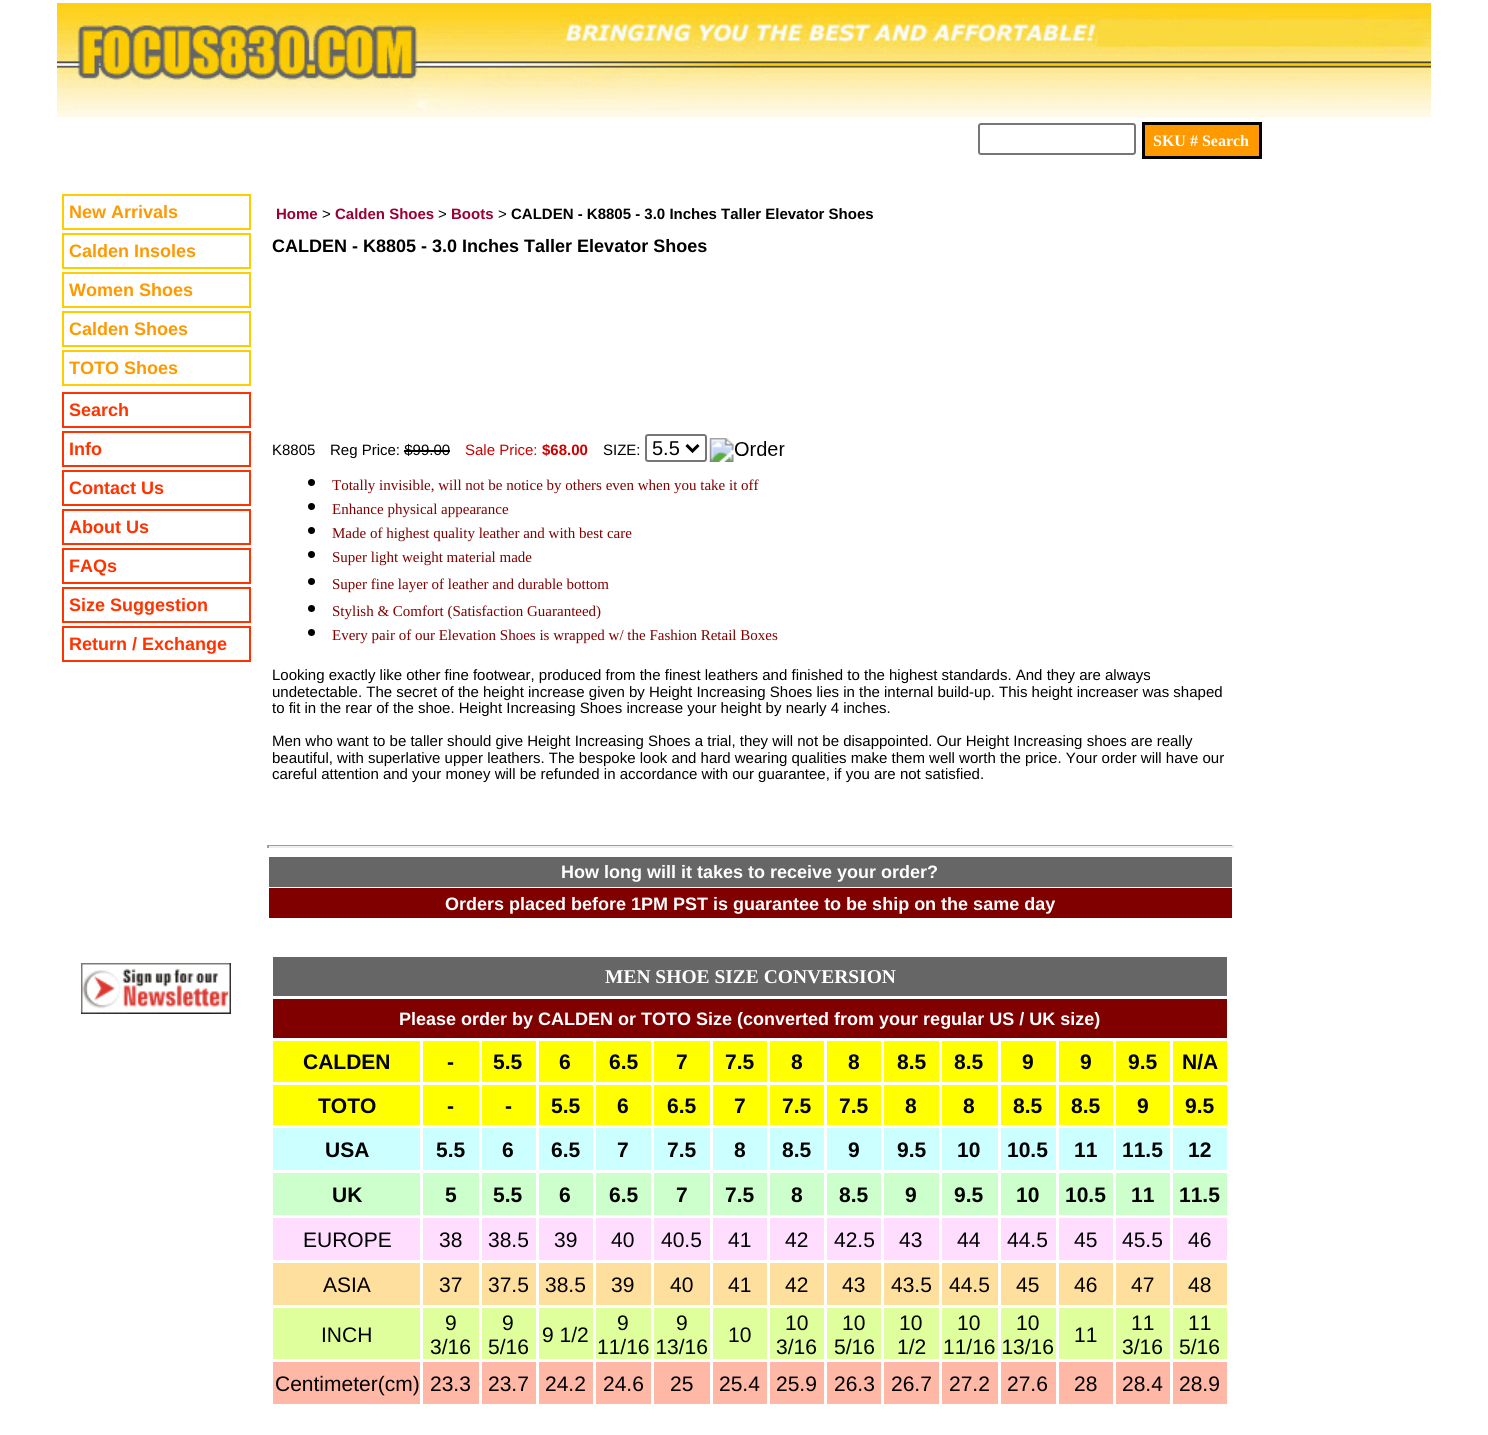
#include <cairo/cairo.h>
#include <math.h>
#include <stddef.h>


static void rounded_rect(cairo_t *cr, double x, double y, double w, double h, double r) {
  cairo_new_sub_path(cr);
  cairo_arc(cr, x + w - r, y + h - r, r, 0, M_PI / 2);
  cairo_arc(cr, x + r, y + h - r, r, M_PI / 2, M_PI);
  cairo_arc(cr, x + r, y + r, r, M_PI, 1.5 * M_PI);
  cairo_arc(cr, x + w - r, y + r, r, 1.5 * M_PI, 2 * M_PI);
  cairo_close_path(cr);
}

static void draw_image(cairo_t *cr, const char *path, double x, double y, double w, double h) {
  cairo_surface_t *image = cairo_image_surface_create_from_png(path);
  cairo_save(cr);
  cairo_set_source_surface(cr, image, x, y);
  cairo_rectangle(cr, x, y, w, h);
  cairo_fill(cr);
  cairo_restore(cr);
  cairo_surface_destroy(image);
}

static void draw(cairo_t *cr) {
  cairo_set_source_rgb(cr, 1, 1, 1);
  cairo_paint(cr);
  draw_image(cr, "images/1.png", 57, 3, 1374, 114);
  rounded_rect(cr, 979, 124, 156, 30, 2);
  cairo_set_source_rgb(cr, 118 / 255.0, 118 / 255.0, 118 / 255.0);
  cairo_stroke(cr);
  cairo_set_source_rgb(cr, 1, 153 / 255.0, 0);
  cairo_rectangle(cr, 1143.5, 123.5, 117, 34);
  cairo_fill_preserve(cr);
  cairo_set_source_rgb(cr, 0, 0, 0);
  cairo_set_line_width(cr, 3);
  cairo_stroke(cr);
  cairo_rectangle(cr, 63, 195, 187, 34);
  cairo_set_source_rgb(cr, 1, 204 / 255.0, 0);
  cairo_set_line_width(cr, 2);
  cairo_stroke(cr);
  cairo_rectangle(cr, 63, 234, 187, 34);
  cairo_stroke(cr);
  cairo_rectangle(cr, 63, 273, 187, 34);
  cairo_stroke(cr);
  cairo_rectangle(cr, 63, 312, 187, 34);
  cairo_stroke(cr);
  cairo_rectangle(cr, 63, 351, 187, 34);
  cairo_stroke(cr);
  cairo_rectangle(cr, 63, 393, 187, 34);
  cairo_set_source_rgb(cr, 1, 51 / 255.0, 0);
  cairo_stroke(cr);
  cairo_rectangle(cr, 63, 432, 187, 34);
  cairo_stroke(cr);
  cairo_rectangle(cr, 63, 471, 187, 34);
  cairo_stroke(cr);
  cairo_rectangle(cr, 63, 510, 187, 34);
  cairo_stroke(cr);
  cairo_rectangle(cr, 63, 549, 187, 34);
  cairo_stroke(cr);
  cairo_rectangle(cr, 63, 588, 187, 34);
  cairo_stroke(cr);
  cairo_rectangle(cr, 63, 627, 187, 34);
  cairo_stroke(cr);
  draw_image(cr, "images/2.png", 81, 963, 150, 51);
  rounded_rect(cr, 646, 435, 60, 26, 2);
  cairo_set_source_rgb(cr, 118 / 255.0, 118 / 255.0, 118 / 255.0);
  cairo_stroke(cr);
  cairo_new_path(cr);
  cairo_move_to(cr, 686.5, 445);
  cairo_line_to(cr, 692.5, 451);
  cairo_line_to(cr, 698.5, 445);
  cairo_set_source_rgb(cr, 0, 0, 0);
  cairo_set_line_width(cr, 3);
  cairo_stroke(cr);
  draw_image(cr, "images/3.png", 709, 438, 76, 24);
  cairo_rectangle(cr, 404, 450, 46, 2);
  cairo_fill(cr);
  cairo_arc(cr, 311.5, 482.5, 3.5, 0, 2 * M_PI);
  cairo_fill(cr);
  cairo_arc(cr, 311.5, 506.5, 3.5, 0, 2 * M_PI);
  cairo_fill(cr);
  cairo_arc(cr, 311.5, 530.5, 3.5, 0, 2 * M_PI);
  cairo_fill(cr);
  cairo_arc(cr, 311.5, 554.5, 3.5, 0, 2 * M_PI);
  cairo_fill(cr);
  cairo_arc(cr, 311.5, 581.5, 3.5, 0, 2 * M_PI);
  cairo_fill(cr);
  cairo_arc(cr, 311.5, 608.5, 3.5, 0, 2 * M_PI);
  cairo_fill(cr);
  cairo_arc(cr, 311.5, 632.5, 3.5, 0, 2 * M_PI);
  cairo_fill(cr);
  cairo_set_source_rgb(cr, 159 / 255.0, 159 / 255.0, 159 / 255.0);
  cairo_rectangle(cr, 267, 845, 966, 1);
  cairo_fill(cr);
  cairo_set_source_rgb(cr, 238 / 255.0, 238 / 255.0, 238 / 255.0);
  cairo_rectangle(cr, 1232, 845, 2, 3);
  cairo_fill(cr);
  cairo_rectangle(cr, 267, 846, 966, 2);
  cairo_fill(cr);
  cairo_set_source_rgb(cr, 159 / 255.0, 159 / 255.0, 159 / 255.0);
  cairo_rectangle(cr, 267, 845, 2, 3);
  cairo_fill(cr);
  cairo_set_source_rgb(cr, 102 / 255.0, 102 / 255.0, 102 / 255.0);
  cairo_rectangle(cr, 269, 857, 963, 30);
  cairo_fill(cr);
  cairo_set_source_rgb(cr, 128 / 255.0, 0, 0);
  cairo_rectangle(cr, 269, 888, 963, 30);
  cairo_fill(cr);
  cairo_set_source_rgb(cr, 102 / 255.0, 102 / 255.0, 102 / 255.0);
  cairo_rectangle(cr, 273, 957, 954, 39);
  cairo_fill(cr);
  cairo_set_source_rgb(cr, 128 / 255.0, 0, 0);
  cairo_rectangle(cr, 273, 999, 954, 39);
  cairo_fill(cr);
  cairo_set_source_rgb(cr, 1, 1, 0);
  cairo_rectangle(cr, 273, 1041, 147, 41);
  cairo_fill(cr);
  cairo_rectangle(cr, 423, 1041, 56, 41);
  cairo_fill(cr);
  cairo_rectangle(cr, 482, 1041, 54, 41);
  cairo_fill(cr);
  cairo_rectangle(cr, 539, 1041, 54, 41);
  cairo_fill(cr);
  cairo_rectangle(cr, 596, 1041, 55, 41);
  cairo_fill(cr);
  cairo_rectangle(cr, 654, 1041, 56, 41);
  cairo_fill(cr);
  cairo_rectangle(cr, 713, 1041, 54, 41);
  cairo_fill(cr);
  cairo_rectangle(cr, 770, 1041, 54, 41);
  cairo_fill(cr);
  cairo_rectangle(cr, 827, 1041, 54, 41);
  cairo_fill(cr);
  cairo_rectangle(cr, 884, 1041, 55, 41);
  cairo_fill(cr);
  cairo_rectangle(cr, 942, 1041, 56, 41);
  cairo_fill(cr);
  cairo_rectangle(cr, 1001, 1041, 55, 41);
  cairo_fill(cr);
  cairo_rectangle(cr, 1059, 1041, 54, 41);
  cairo_fill(cr);
  cairo_rectangle(cr, 1116, 1041, 54, 41);
  cairo_fill(cr);
  cairo_rectangle(cr, 1173, 1041, 54, 41);
  cairo_fill(cr);
  cairo_rectangle(cr, 273, 1085, 147, 40);
  cairo_fill(cr);
  cairo_rectangle(cr, 423, 1085, 56, 40);
  cairo_fill(cr);
  cairo_rectangle(cr, 482, 1085, 54, 40);
  cairo_fill(cr);
  cairo_rectangle(cr, 539, 1085, 54, 40);
  cairo_fill(cr);
  cairo_rectangle(cr, 596, 1085, 55, 40);
  cairo_fill(cr);
  cairo_rectangle(cr, 654, 1085, 56, 40);
  cairo_fill(cr);
  cairo_rectangle(cr, 713, 1085, 54, 40);
  cairo_fill(cr);
  cairo_rectangle(cr, 770, 1085, 54, 40);
  cairo_fill(cr);
  cairo_rectangle(cr, 827, 1085, 54, 40);
  cairo_fill(cr);
  cairo_rectangle(cr, 884, 1085, 55, 40);
  cairo_fill(cr);
  cairo_rectangle(cr, 942, 1085, 56, 40);
  cairo_fill(cr);
  cairo_rectangle(cr, 1001, 1085, 55, 40);
  cairo_fill(cr);
  cairo_rectangle(cr, 1059, 1085, 54, 40);
  cairo_fill(cr);
  cairo_rectangle(cr, 1116, 1085, 54, 40);
  cairo_fill(cr);
  cairo_rectangle(cr, 1173, 1085, 54, 40);
  cairo_fill(cr);
  cairo_set_source_rgb(cr, 204 / 255.0, 1, 1);
  cairo_rectangle(cr, 273, 1128, 147, 42);
  cairo_fill(cr);
  cairo_rectangle(cr, 423, 1128, 56, 42);
  cairo_fill(cr);
  cairo_rectangle(cr, 482, 1128, 54, 42);
  cairo_fill(cr);
  cairo_rectangle(cr, 539, 1128, 54, 42);
  cairo_fill(cr);
  cairo_rectangle(cr, 596, 1128, 55, 42);
  cairo_fill(cr);
  cairo_rectangle(cr, 654, 1128, 56, 42);
  cairo_fill(cr);
  cairo_rectangle(cr, 713, 1128, 54, 42);
  cairo_fill(cr);
  cairo_rectangle(cr, 770, 1128, 54, 42);
  cairo_fill(cr);
  cairo_rectangle(cr, 827, 1128, 54, 42);
  cairo_fill(cr);
  cairo_rectangle(cr, 884, 1128, 55, 42);
  cairo_fill(cr);
  cairo_rectangle(cr, 942, 1128, 56, 42);
  cairo_fill(cr);
  cairo_rectangle(cr, 1001, 1128, 55, 42);
  cairo_fill(cr);
  cairo_rectangle(cr, 1059, 1128, 54, 42);
  cairo_fill(cr);
  cairo_rectangle(cr, 1116, 1128, 54, 42);
  cairo_fill(cr);
  cairo_rectangle(cr, 1173, 1128, 54, 42);
  cairo_fill(cr);
  cairo_set_source_rgb(cr, 204 / 255.0, 1, 204 / 255.0);
  cairo_rectangle(cr, 273, 1173, 147, 42);
  cairo_fill(cr);
  cairo_rectangle(cr, 423, 1173, 56, 42);
  cairo_fill(cr);
  cairo_rectangle(cr, 482, 1173, 54, 42);
  cairo_fill(cr);
  cairo_rectangle(cr, 539, 1173, 54, 42);
  cairo_fill(cr);
  cairo_rectangle(cr, 596, 1173, 55, 42);
  cairo_fill(cr);
  cairo_rectangle(cr, 654, 1173, 56, 42);
  cairo_fill(cr);
  cairo_rectangle(cr, 713, 1173, 54, 42);
  cairo_fill(cr);
  cairo_rectangle(cr, 770, 1173, 54, 42);
  cairo_fill(cr);
  cairo_rectangle(cr, 827, 1173, 54, 42);
  cairo_fill(cr);
  cairo_rectangle(cr, 884, 1173, 55, 42);
  cairo_fill(cr);
  cairo_rectangle(cr, 942, 1173, 56, 42);
  cairo_fill(cr);
  cairo_rectangle(cr, 1001, 1173, 55, 42);
  cairo_fill(cr);
  cairo_rectangle(cr, 1059, 1173, 54, 42);
  cairo_fill(cr);
  cairo_rectangle(cr, 1116, 1173, 54, 42);
  cairo_fill(cr);
  cairo_rectangle(cr, 1173, 1173, 54, 42);
  cairo_fill(cr);
  cairo_set_source_rgb(cr, 1, 221 / 255.0, 1);
  cairo_rectangle(cr, 273, 1218, 147, 42);
  cairo_fill(cr);
  cairo_rectangle(cr, 423, 1218, 56, 42);
  cairo_fill(cr);
  cairo_rectangle(cr, 482, 1218, 54, 42);
  cairo_fill(cr);
  cairo_rectangle(cr, 539, 1218, 54, 42);
  cairo_fill(cr);
  cairo_rectangle(cr, 596, 1218, 55, 42);
  cairo_fill(cr);
  cairo_rectangle(cr, 654, 1218, 56, 42);
  cairo_fill(cr);
  cairo_rectangle(cr, 713, 1218, 54, 42);
  cairo_fill(cr);
  cairo_rectangle(cr, 770, 1218, 54, 42);
  cairo_fill(cr);
  cairo_rectangle(cr, 827, 1218, 54, 42);
  cairo_fill(cr);
  cairo_rectangle(cr, 884, 1218, 55, 42);
  cairo_fill(cr);
  cairo_rectangle(cr, 942, 1218, 56, 42);
  cairo_fill(cr);
  cairo_rectangle(cr, 1001, 1218, 55, 42);
  cairo_fill(cr);
  cairo_rectangle(cr, 1059, 1218, 54, 42);
  cairo_fill(cr);
  cairo_rectangle(cr, 1116, 1218, 54, 42);
  cairo_fill(cr);
  cairo_rectangle(cr, 1173, 1218, 54, 42);
  cairo_fill(cr);
  cairo_set_source_rgb(cr, 1, 223 / 255.0, 157 / 255.0);
  cairo_rectangle(cr, 273, 1263, 147, 42);
  cairo_fill(cr);
  cairo_rectangle(cr, 423, 1263, 56, 42);
  cairo_fill(cr);
  cairo_rectangle(cr, 482, 1263, 54, 42);
  cairo_fill(cr);
  cairo_rectangle(cr, 539, 1263, 54, 42);
  cairo_fill(cr);
  cairo_rectangle(cr, 596, 1263, 55, 42);
  cairo_fill(cr);
  cairo_rectangle(cr, 654, 1263, 56, 42);
  cairo_fill(cr);
  cairo_rectangle(cr, 713, 1263, 54, 42);
  cairo_fill(cr);
  cairo_rectangle(cr, 770, 1263, 54, 42);
  cairo_fill(cr);
  cairo_rectangle(cr, 827, 1263, 54, 42);
  cairo_fill(cr);
  cairo_rectangle(cr, 884, 1263, 55, 42);
  cairo_fill(cr);
  cairo_rectangle(cr, 942, 1263, 56, 42);
  cairo_fill(cr);
  cairo_rectangle(cr, 1001, 1263, 55, 42);
  cairo_fill(cr);
  cairo_rectangle(cr, 1059, 1263, 54, 42);
  cairo_fill(cr);
  cairo_rectangle(cr, 1116, 1263, 54, 42);
  cairo_fill(cr);
  cairo_rectangle(cr, 1173, 1263, 54, 42);
  cairo_fill(cr);
  cairo_set_source_rgb(cr, 222 / 255.0, 1, 155 / 255.0);
  cairo_rectangle(cr, 423, 1308, 56, 51);
  cairo_fill(cr);
  cairo_rectangle(cr, 482, 1308, 54, 51);
  cairo_fill(cr);
  cairo_rectangle(cr, 596, 1308, 55, 51);
  cairo_fill(cr);
  cairo_rectangle(cr, 654, 1308, 56, 51);
  cairo_fill(cr);
  cairo_rectangle(cr, 770, 1308, 54, 51);
  cairo_fill(cr);
  cairo_rectangle(cr, 827, 1308, 54, 51);
  cairo_fill(cr);
  cairo_rectangle(cr, 884, 1308, 55, 51);
  cairo_fill(cr);
  cairo_rectangle(cr, 942, 1308, 56, 51);
  cairo_fill(cr);
  cairo_rectangle(cr, 273, 1308, 147, 51);
  cairo_fill(cr);
  cairo_rectangle(cr, 539, 1308, 54, 51);
  cairo_fill(cr);
  cairo_rectangle(cr, 713, 1308, 54, 51);
  cairo_fill(cr);
  cairo_rectangle(cr, 1001, 1308, 55, 51);
  cairo_fill(cr);
  cairo_rectangle(cr, 1059, 1308, 54, 51);
  cairo_fill(cr);
  cairo_rectangle(cr, 1116, 1308, 54, 51);
  cairo_fill(cr);
  cairo_rectangle(cr, 1173, 1308, 54, 51);
  cairo_fill(cr);
  cairo_set_source_rgb(cr, 1, 184 / 255.0, 166 / 255.0);
  cairo_rectangle(cr, 273, 1362, 147, 42);
  cairo_fill(cr);
  cairo_rectangle(cr, 423, 1362, 56, 42);
  cairo_fill(cr);
  cairo_rectangle(cr, 482, 1362, 54, 42);
  cairo_fill(cr);
  cairo_rectangle(cr, 539, 1362, 54, 42);
  cairo_fill(cr);
  cairo_rectangle(cr, 596, 1362, 55, 42);
  cairo_fill(cr);
  cairo_rectangle(cr, 654, 1362, 56, 42);
  cairo_fill(cr);
  cairo_rectangle(cr, 713, 1362, 54, 42);
  cairo_fill(cr);
  cairo_rectangle(cr, 770, 1362, 54, 42);
  cairo_fill(cr);
  cairo_rectangle(cr, 827, 1362, 54, 42);
  cairo_fill(cr);
  cairo_rectangle(cr, 884, 1362, 55, 42);
  cairo_fill(cr);
  cairo_rectangle(cr, 942, 1362, 56, 42);
  cairo_fill(cr);
  cairo_rectangle(cr, 1001, 1362, 55, 42);
  cairo_fill(cr);
  cairo_rectangle(cr, 1059, 1362, 54, 42);
  cairo_fill(cr);
  cairo_rectangle(cr, 1116, 1362, 54, 42);
  cairo_fill(cr);
  cairo_rectangle(cr, 1173, 1362, 54, 42);
  cairo_fill(cr);
  cairo_select_font_face(cr, "Liberation Serif", CAIRO_FONT_SLANT_NORMAL, CAIRO_FONT_WEIGHT_BOLD);
  cairo_set_font_size(cr, 16);
  cairo_set_source_rgb(cr, 1, 1, 1);
  cairo_move_to(cr, 1153, 146);
  cairo_show_text(cr, "SKU # Search");
  cairo_select_font_face(cr, "Liberation Sans", CAIRO_FONT_SLANT_NORMAL, CAIRO_FONT_WEIGHT_BOLD);
  cairo_set_font_size(cr, 18);
  cairo_set_source_rgb(cr, 1, 153 / 255.0, 0);
  cairo_move_to(cr, 69, 218);
  cairo_show_text(cr, "New Arrivals");
  cairo_move_to(cr, 69, 257);
  cairo_show_text(cr, "Calden Insoles");
  cairo_move_to(cr, 69, 296);
  cairo_show_text(cr, "Women Shoes");
  cairo_move_to(cr, 69, 335);
  cairo_show_text(cr, "Calden Shoes");
  cairo_move_to(cr, 69, 374);
  cairo_show_text(cr, "TOTO Shoes");
  cairo_set_source_rgb(cr, 1, 51 / 255.0, 0);
  cairo_move_to(cr, 69, 416);
  cairo_show_text(cr, "Search");
  cairo_move_to(cr, 69, 455);
  cairo_show_text(cr, "Info");
  cairo_move_to(cr, 69, 494);
  cairo_show_text(cr, "Contact Us");
  cairo_move_to(cr, 69, 533);
  cairo_show_text(cr, "About Us");
  cairo_move_to(cr, 69, 572);
  cairo_show_text(cr, "FAQs");
  cairo_move_to(cr, 69, 611);
  cairo_show_text(cr, "Size Suggestion");
  cairo_move_to(cr, 69, 650);
  cairo_show_text(cr, "Return / Exchange");
  cairo_set_font_size(cr, 15);
  cairo_set_source_rgb(cr, 153 / 255.0, 0, 51 / 255.0);
  cairo_move_to(cr, 276, 219);
  cairo_show_text(cr, "Home");
  cairo_select_font_face(cr, "Liberation Sans", CAIRO_FONT_SLANT_NORMAL, CAIRO_FONT_WEIGHT_NORMAL);
  cairo_set_source_rgb(cr, 0, 0, 0);
  cairo_move_to(cr, 322, 219);
  cairo_show_text(cr, ">");
  cairo_select_font_face(cr, "Liberation Sans", CAIRO_FONT_SLANT_NORMAL, CAIRO_FONT_WEIGHT_BOLD);
  cairo_set_source_rgb(cr, 153 / 255.0, 0, 51 / 255.0);
  cairo_move_to(cr, 335, 219);
  cairo_show_text(cr, "Calden Shoes");
  cairo_select_font_face(cr, "Liberation Sans", CAIRO_FONT_SLANT_NORMAL, CAIRO_FONT_WEIGHT_NORMAL);
  cairo_set_source_rgb(cr, 0, 0, 0);
  cairo_move_to(cr, 438, 219);
  cairo_show_text(cr, ">");
  cairo_select_font_face(cr, "Liberation Sans", CAIRO_FONT_SLANT_NORMAL, CAIRO_FONT_WEIGHT_BOLD);
  cairo_set_source_rgb(cr, 153 / 255.0, 0, 51 / 255.0);
  cairo_move_to(cr, 451, 219);
  cairo_show_text(cr, "Boots");
  cairo_select_font_face(cr, "Liberation Sans", CAIRO_FONT_SLANT_NORMAL, CAIRO_FONT_WEIGHT_NORMAL);
  cairo_set_source_rgb(cr, 0, 0, 0);
  cairo_move_to(cr, 498, 219);
  cairo_show_text(cr, ">");
  cairo_select_font_face(cr, "Liberation Sans", CAIRO_FONT_SLANT_NORMAL, CAIRO_FONT_WEIGHT_BOLD);
  cairo_move_to(cr, 511, 219);
  cairo_show_text(cr, "CALDEN - K8805 - 3.0 Inches Taller Elevator Shoes");
  cairo_set_font_size(cr, 18);
  cairo_move_to(cr, 272, 252);
  cairo_show_text(cr, "CALDEN - K8805 - 3.0 Inches Taller Elevator Shoes");
  cairo_select_font_face(cr, "Liberation Sans", CAIRO_FONT_SLANT_NORMAL, CAIRO_FONT_WEIGHT_NORMAL);
  cairo_set_font_size(cr, 15);
  cairo_move_to(cr, 272, 455);
  cairo_show_text(cr, "K8805");
  cairo_move_to(cr, 330, 455);
  cairo_show_text(cr, "Reg Price: $99.00");
  cairo_set_source_rgb(cr, 204 / 255.0, 0, 0);
  cairo_move_to(cr, 465, 455);
  cairo_show_text(cr, "Sale Price:");
  cairo_select_font_face(cr, "Liberation Sans", CAIRO_FONT_SLANT_NORMAL, CAIRO_FONT_WEIGHT_BOLD);
  cairo_move_to(cr, 542, 455);
  cairo_show_text(cr, "$68.00");
  cairo_select_font_face(cr, "Liberation Sans", CAIRO_FONT_SLANT_NORMAL, CAIRO_FONT_WEIGHT_NORMAL);
  cairo_set_source_rgb(cr, 0, 0, 0);
  cairo_move_to(cr, 603, 455);
  cairo_show_text(cr, "SIZE:");
  cairo_set_font_size(cr, 20);
  cairo_move_to(cr, 652, 455);
  cairo_show_text(cr, "5.5");
  cairo_select_font_face(cr, "Liberation Serif", CAIRO_FONT_SLANT_NORMAL, CAIRO_FONT_WEIGHT_NORMAL);
  cairo_set_font_size(cr, 15);
  cairo_set_source_rgb(cr, 128 / 255.0, 0, 0);
  cairo_move_to(cr, 332, 490);
  cairo_show_text(cr, "Totally invisible, will not be notice by others even when you take it off");
  cairo_move_to(cr, 332, 514);
  cairo_show_text(cr, "Enhance physical appearance");
  cairo_move_to(cr, 332, 538);
  cairo_show_text(cr, "Made of highest quality leather and with best care");
  cairo_move_to(cr, 332, 562);
  cairo_show_text(cr, "Super light weight material made");
  cairo_move_to(cr, 332, 589);
  cairo_show_text(cr, "Super fine layer of leather and durable bottom");
  cairo_move_to(cr, 332, 616);
  cairo_show_text(cr, "Stylish & Comfort (Satisfaction Guaranteed)");
  cairo_move_to(cr, 332, 640);
  cairo_show_text(cr, "Every pair of our Elevation Shoes is wrapped w/ the Fashion Retail Boxes");
  cairo_select_font_face(cr, "Liberation Sans", CAIRO_FONT_SLANT_NORMAL, CAIRO_FONT_WEIGHT_NORMAL);
  cairo_set_source_rgb(cr, 0, 0, 0);
  cairo_move_to(cr, 272, 680);
  cairo_show_text(cr, "Looking exactly like other fine footwear, produced from the finest leathers and finished to the highest standards. And they are always");
  cairo_move_to(cr, 272, 697);
  cairo_show_text(cr, "undetectable. The secret of the height increase given by Height Increasing Shoes lies in the internal build-up. This height increaser was shaped");
  cairo_move_to(cr, 272, 713);
  cairo_show_text(cr, "to fit in the rear of the shoe. Height Increasing Shoes increase your height by nearly 4 inches.");
  cairo_move_to(cr, 272, 746);
  cairo_show_text(cr, "Men who want to be taller should give Height Increasing Shoes a trial, they will not be disappointed. Our Height Increasing shoes are really");
  cairo_move_to(cr, 272, 763);
  cairo_show_text(cr, "beautiful, with superlative upper leathers. The bespoke look and hard wearing qualities make them well worth the price. Your order will have our");
  cairo_move_to(cr, 272, 779);
  cairo_show_text(cr, "careful attention and your money will be refunded in accordance with our guarantee, if you are not satisfied.");
  cairo_select_font_face(cr, "Liberation Sans", CAIRO_FONT_SLANT_NORMAL, CAIRO_FONT_WEIGHT_BOLD);
  cairo_set_font_size(cr, 18);
  cairo_set_source_rgb(cr, 1, 1, 1);
  cairo_move_to(cr, 561, 878);
  cairo_show_text(cr, "How long will it takes to receive your order?");
  cairo_move_to(cr, 445, 910);
  cairo_show_text(cr, "Orders placed before 1PM PST is guarantee to be ship on the same day");
  cairo_select_font_face(cr, "Liberation Serif", CAIRO_FONT_SLANT_NORMAL, CAIRO_FONT_WEIGHT_BOLD);
  cairo_set_font_size(cr, 19.5);
  cairo_move_to(cr, 605, 983);
  cairo_show_text(cr, "MEN SHOE SIZE CONVERSION");
  cairo_select_font_face(cr, "Liberation Sans", CAIRO_FONT_SLANT_NORMAL, CAIRO_FONT_WEIGHT_BOLD);
  cairo_set_font_size(cr, 18);
  cairo_move_to(cr, 399, 1025);
  cairo_show_text(cr, "Please order by CALDEN or TOTO Size (converted from your regular US / UK size)");
  cairo_set_font_size(cr, 21);
  cairo_set_source_rgb(cr, 0, 0, 0);
  cairo_move_to(cr, 303, 1069);
  cairo_show_text(cr, "CALDEN");
  cairo_move_to(cr, 447, 1069);
  cairo_show_text(cr, "-");
  cairo_move_to(cr, 493, 1069);
  cairo_show_text(cr, "5.5");
  cairo_move_to(cr, 559, 1069);
  cairo_show_text(cr, "6");
  cairo_move_to(cr, 609, 1069);
  cairo_show_text(cr, "6.5");
  cairo_move_to(cr, 676, 1069);
  cairo_show_text(cr, "7");
  cairo_move_to(cr, 725, 1069);
  cairo_show_text(cr, "7.5");
  cairo_move_to(cr, 791, 1069);
  cairo_show_text(cr, "8");
  cairo_move_to(cr, 848, 1069);
  cairo_show_text(cr, "8");
  cairo_move_to(cr, 897, 1069);
  cairo_show_text(cr, "8.5");
  cairo_move_to(cr, 954, 1069);
  cairo_show_text(cr, "8.5");
  cairo_move_to(cr, 1022, 1069);
  cairo_show_text(cr, "9");
  cairo_move_to(cr, 1080, 1069);
  cairo_show_text(cr, "9");
  cairo_move_to(cr, 1128, 1069);
  cairo_show_text(cr, "9.5");
  cairo_move_to(cr, 1182, 1069);
  cairo_show_text(cr, "N/A");
  cairo_move_to(cr, 318, 1113);
  cairo_show_text(cr, "TOTO");
  cairo_move_to(cr, 447, 1113);
  cairo_show_text(cr, "-");
  cairo_move_to(cr, 505, 1113);
  cairo_show_text(cr, "-");
  cairo_move_to(cr, 551, 1113);
  cairo_show_text(cr, "5.5");
  cairo_move_to(cr, 617, 1113);
  cairo_show_text(cr, "6");
  cairo_move_to(cr, 667, 1113);
  cairo_show_text(cr, "6.5");
  cairo_move_to(cr, 734, 1113);
  cairo_show_text(cr, "7");
  cairo_move_to(cr, 782, 1113);
  cairo_show_text(cr, "7.5");
  cairo_move_to(cr, 839, 1113);
  cairo_show_text(cr, "7.5");
  cairo_move_to(cr, 905, 1113);
  cairo_show_text(cr, "8");
  cairo_move_to(cr, 963, 1113);
  cairo_show_text(cr, "8");
  cairo_move_to(cr, 1013, 1113);
  cairo_show_text(cr, "8.5");
  cairo_move_to(cr, 1071, 1113);
  cairo_show_text(cr, "8.5");
  cairo_move_to(cr, 1137, 1113);
  cairo_show_text(cr, "9");
  cairo_move_to(cr, 1185, 1113);
  cairo_show_text(cr, "9.5");
  cairo_move_to(cr, 325, 1157);
  cairo_show_text(cr, "USA");
  cairo_move_to(cr, 436, 1157);
  cairo_show_text(cr, "5.5");
  cairo_move_to(cr, 502, 1157);
  cairo_show_text(cr, "6");
  cairo_move_to(cr, 551, 1157);
  cairo_show_text(cr, "6.5");
  cairo_move_to(cr, 617, 1157);
  cairo_show_text(cr, "7");
  cairo_move_to(cr, 667, 1157);
  cairo_show_text(cr, "7.5");
  cairo_move_to(cr, 734, 1157);
  cairo_show_text(cr, "8");
  cairo_move_to(cr, 782, 1157);
  cairo_show_text(cr, "8.5");
  cairo_move_to(cr, 848, 1157);
  cairo_show_text(cr, "9");
  cairo_move_to(cr, 897, 1157);
  cairo_show_text(cr, "9.5");
  cairo_move_to(cr, 957, 1157);
  cairo_show_text(cr, "10");
  cairo_move_to(cr, 1007, 1157);
  cairo_show_text(cr, "10.5");
  cairo_move_to(cr, 1074, 1157);
  cairo_show_text(cr, "11");
  cairo_move_to(cr, 1122, 1157);
  cairo_show_text(cr, "11.5");
  cairo_move_to(cr, 1188, 1157);
  cairo_show_text(cr, "12");
  cairo_move_to(cr, 332, 1202);
  cairo_show_text(cr, "UK");
  cairo_move_to(cr, 445, 1202);
  cairo_show_text(cr, "5");
  cairo_move_to(cr, 493, 1202);
  cairo_show_text(cr, "5.5");
  cairo_move_to(cr, 559, 1202);
  cairo_show_text(cr, "6");
  cairo_move_to(cr, 609, 1202);
  cairo_show_text(cr, "6.5");
  cairo_move_to(cr, 676, 1202);
  cairo_show_text(cr, "7");
  cairo_move_to(cr, 725, 1202);
  cairo_show_text(cr, "7.5");
  cairo_move_to(cr, 791, 1202);
  cairo_show_text(cr, "8");
  cairo_move_to(cr, 839, 1202);
  cairo_show_text(cr, "8.5");
  cairo_move_to(cr, 905, 1202);
  cairo_show_text(cr, "9");
  cairo_move_to(cr, 954, 1202);
  cairo_show_text(cr, "9.5");
  cairo_move_to(cr, 1016, 1202);
  cairo_show_text(cr, "10");
  cairo_move_to(cr, 1065, 1202);
  cairo_show_text(cr, "10.5");
  cairo_move_to(cr, 1131, 1202);
  cairo_show_text(cr, "11");
  cairo_move_to(cr, 1179, 1202);
  cairo_show_text(cr, "11.5");
  cairo_select_font_face(cr, "Liberation Sans", CAIRO_FONT_SLANT_NORMAL, CAIRO_FONT_WEIGHT_NORMAL);
  cairo_move_to(cr, 303, 1247);
  cairo_show_text(cr, "EUROPE");
  cairo_move_to(cr, 439, 1247);
  cairo_show_text(cr, "38");
  cairo_move_to(cr, 488, 1247);
  cairo_show_text(cr, "38.5");
  cairo_move_to(cr, 554, 1247);
  cairo_show_text(cr, "39");
  cairo_move_to(cr, 611, 1247);
  cairo_show_text(cr, "40");
  cairo_move_to(cr, 661, 1247);
  cairo_show_text(cr, "40.5");
  cairo_move_to(cr, 728, 1247);
  cairo_show_text(cr, "41");
  cairo_move_to(cr, 785, 1247);
  cairo_show_text(cr, "42");
  cairo_move_to(cr, 834, 1247);
  cairo_show_text(cr, "42.5");
  cairo_move_to(cr, 899, 1247);
  cairo_show_text(cr, "43");
  cairo_move_to(cr, 957, 1247);
  cairo_show_text(cr, "44");
  cairo_move_to(cr, 1007, 1247);
  cairo_show_text(cr, "44.5");
  cairo_move_to(cr, 1074, 1247);
  cairo_show_text(cr, "45");
  cairo_move_to(cr, 1122, 1247);
  cairo_show_text(cr, "45.5");
  cairo_move_to(cr, 1188, 1247);
  cairo_show_text(cr, "46");
  cairo_move_to(cr, 323, 1292);
  cairo_show_text(cr, "ASIA");
  cairo_move_to(cr, 439, 1292);
  cairo_show_text(cr, "37");
  cairo_move_to(cr, 488, 1292);
  cairo_show_text(cr, "37.5");
  cairo_move_to(cr, 545, 1292);
  cairo_show_text(cr, "38.5");
  cairo_move_to(cr, 611, 1292);
  cairo_show_text(cr, "39");
  cairo_move_to(cr, 670, 1292);
  cairo_show_text(cr, "40");
  cairo_move_to(cr, 728, 1292);
  cairo_show_text(cr, "41");
  cairo_move_to(cr, 785, 1292);
  cairo_show_text(cr, "42");
  cairo_move_to(cr, 842, 1292);
  cairo_show_text(cr, "43");
  cairo_move_to(cr, 891, 1292);
  cairo_show_text(cr, "43.5");
  cairo_move_to(cr, 949, 1292);
  cairo_show_text(cr, "44.5");
  cairo_move_to(cr, 1016, 1292);
  cairo_show_text(cr, "45");
  cairo_move_to(cr, 1074, 1292);
  cairo_show_text(cr, "46");
  cairo_move_to(cr, 1131, 1292);
  cairo_show_text(cr, "47");
  cairo_move_to(cr, 1188, 1292);
  cairo_show_text(cr, "48");
  cairo_move_to(cr, 445, 1330);
  cairo_show_text(cr, "9");
  cairo_move_to(cr, 430, 1354);
  cairo_show_text(cr, "3/16");
  cairo_move_to(cr, 502, 1330);
  cairo_show_text(cr, "9");
  cairo_move_to(cr, 488, 1354);
  cairo_show_text(cr, "5/16");
  cairo_move_to(cr, 617, 1330);
  cairo_show_text(cr, "9");
  cairo_move_to(cr, 597, 1354);
  cairo_show_text(cr, "11/16 13/16");
  cairo_move_to(cr, 676, 1330);
  cairo_show_text(cr, "9");
  cairo_move_to(cr, 785, 1330);
  cairo_show_text(cr, "10");
  cairo_move_to(cr, 776, 1354);
  cairo_show_text(cr, "3/16");
  cairo_move_to(cr, 842, 1330);
  cairo_show_text(cr, "10");
  cairo_move_to(cr, 834, 1354);
  cairo_show_text(cr, "5/16");
  cairo_move_to(cr, 899, 1330);
  cairo_show_text(cr, "10");
  cairo_move_to(cr, 897, 1354);
  cairo_show_text(cr, "1/2");
  cairo_move_to(cr, 957, 1330);
  cairo_show_text(cr, "10");
  cairo_move_to(cr, 943, 1354);
  cairo_show_text(cr, "11/16 13/16");
  cairo_move_to(cr, 321, 1342);
  cairo_show_text(cr, "INCH");
  cairo_move_to(cr, 542, 1342);
  cairo_show_text(cr, "9 1/2");
  cairo_move_to(cr, 728, 1342);
  cairo_show_text(cr, "10");
  cairo_move_to(cr, 1016, 1330);
  cairo_show_text(cr, "10");
  cairo_move_to(cr, 1074, 1342);
  cairo_show_text(cr, "11");
  cairo_move_to(cr, 1131, 1330);
  cairo_show_text(cr, "11");
  cairo_move_to(cr, 1122, 1354);
  cairo_show_text(cr, "3/16");
  cairo_move_to(cr, 1188, 1330);
  cairo_show_text(cr, "11");
  cairo_move_to(cr, 1179, 1354);
  cairo_show_text(cr, "5/16");
  cairo_move_to(cr, 275, 1391);
  cairo_show_text(cr, "Centimeter(cm)");
  cairo_move_to(cr, 430, 1391);
  cairo_show_text(cr, "23.3");
  cairo_move_to(cr, 488, 1391);
  cairo_show_text(cr, "23.7");
  cairo_move_to(cr, 545, 1391);
  cairo_show_text(cr, "24.2");
  cairo_move_to(cr, 603, 1391);
  cairo_show_text(cr, "24.6");
  cairo_move_to(cr, 670, 1391);
  cairo_show_text(cr, "25");
  cairo_move_to(cr, 719, 1391);
  cairo_show_text(cr, "25.4");
  cairo_move_to(cr, 776, 1391);
  cairo_show_text(cr, "25.9");
  cairo_move_to(cr, 834, 1391);
  cairo_show_text(cr, "26.3");
  cairo_move_to(cr, 891, 1391);
  cairo_show_text(cr, "26.7");
  cairo_move_to(cr, 949, 1391);
  cairo_show_text(cr, "27.2");
  cairo_move_to(cr, 1007, 1391);
  cairo_show_text(cr, "27.6");
  cairo_move_to(cr, 1074, 1391);
  cairo_show_text(cr, "28");
  cairo_move_to(cr, 1122, 1391);
  cairo_show_text(cr, "28.4");
  cairo_move_to(cr, 1179, 1391);
  cairo_show_text(cr, "28.9");
}

int main(void) {
  cairo_surface_t *surface = cairo_image_surface_create(CAIRO_FORMAT_RGB24, 1488, 1435);
  cairo_t *cr = cairo_create(surface);
  cairo_font_options_t *options = cairo_font_options_create();
  cairo_font_options_set_hint_metrics(options, CAIRO_HINT_METRICS_OFF);
  cairo_font_options_set_hint_style(options, CAIRO_HINT_STYLE_NONE);
  cairo_set_font_options(cr, options);
  cairo_set_miter_limit(cr, 4);
  draw(cr);
  cairo_surface_write_to_png(surface, "out.png");
  cairo_font_options_destroy(options);
  cairo_destroy(cr);
  cairo_surface_destroy(surface);
  return 0;
}
